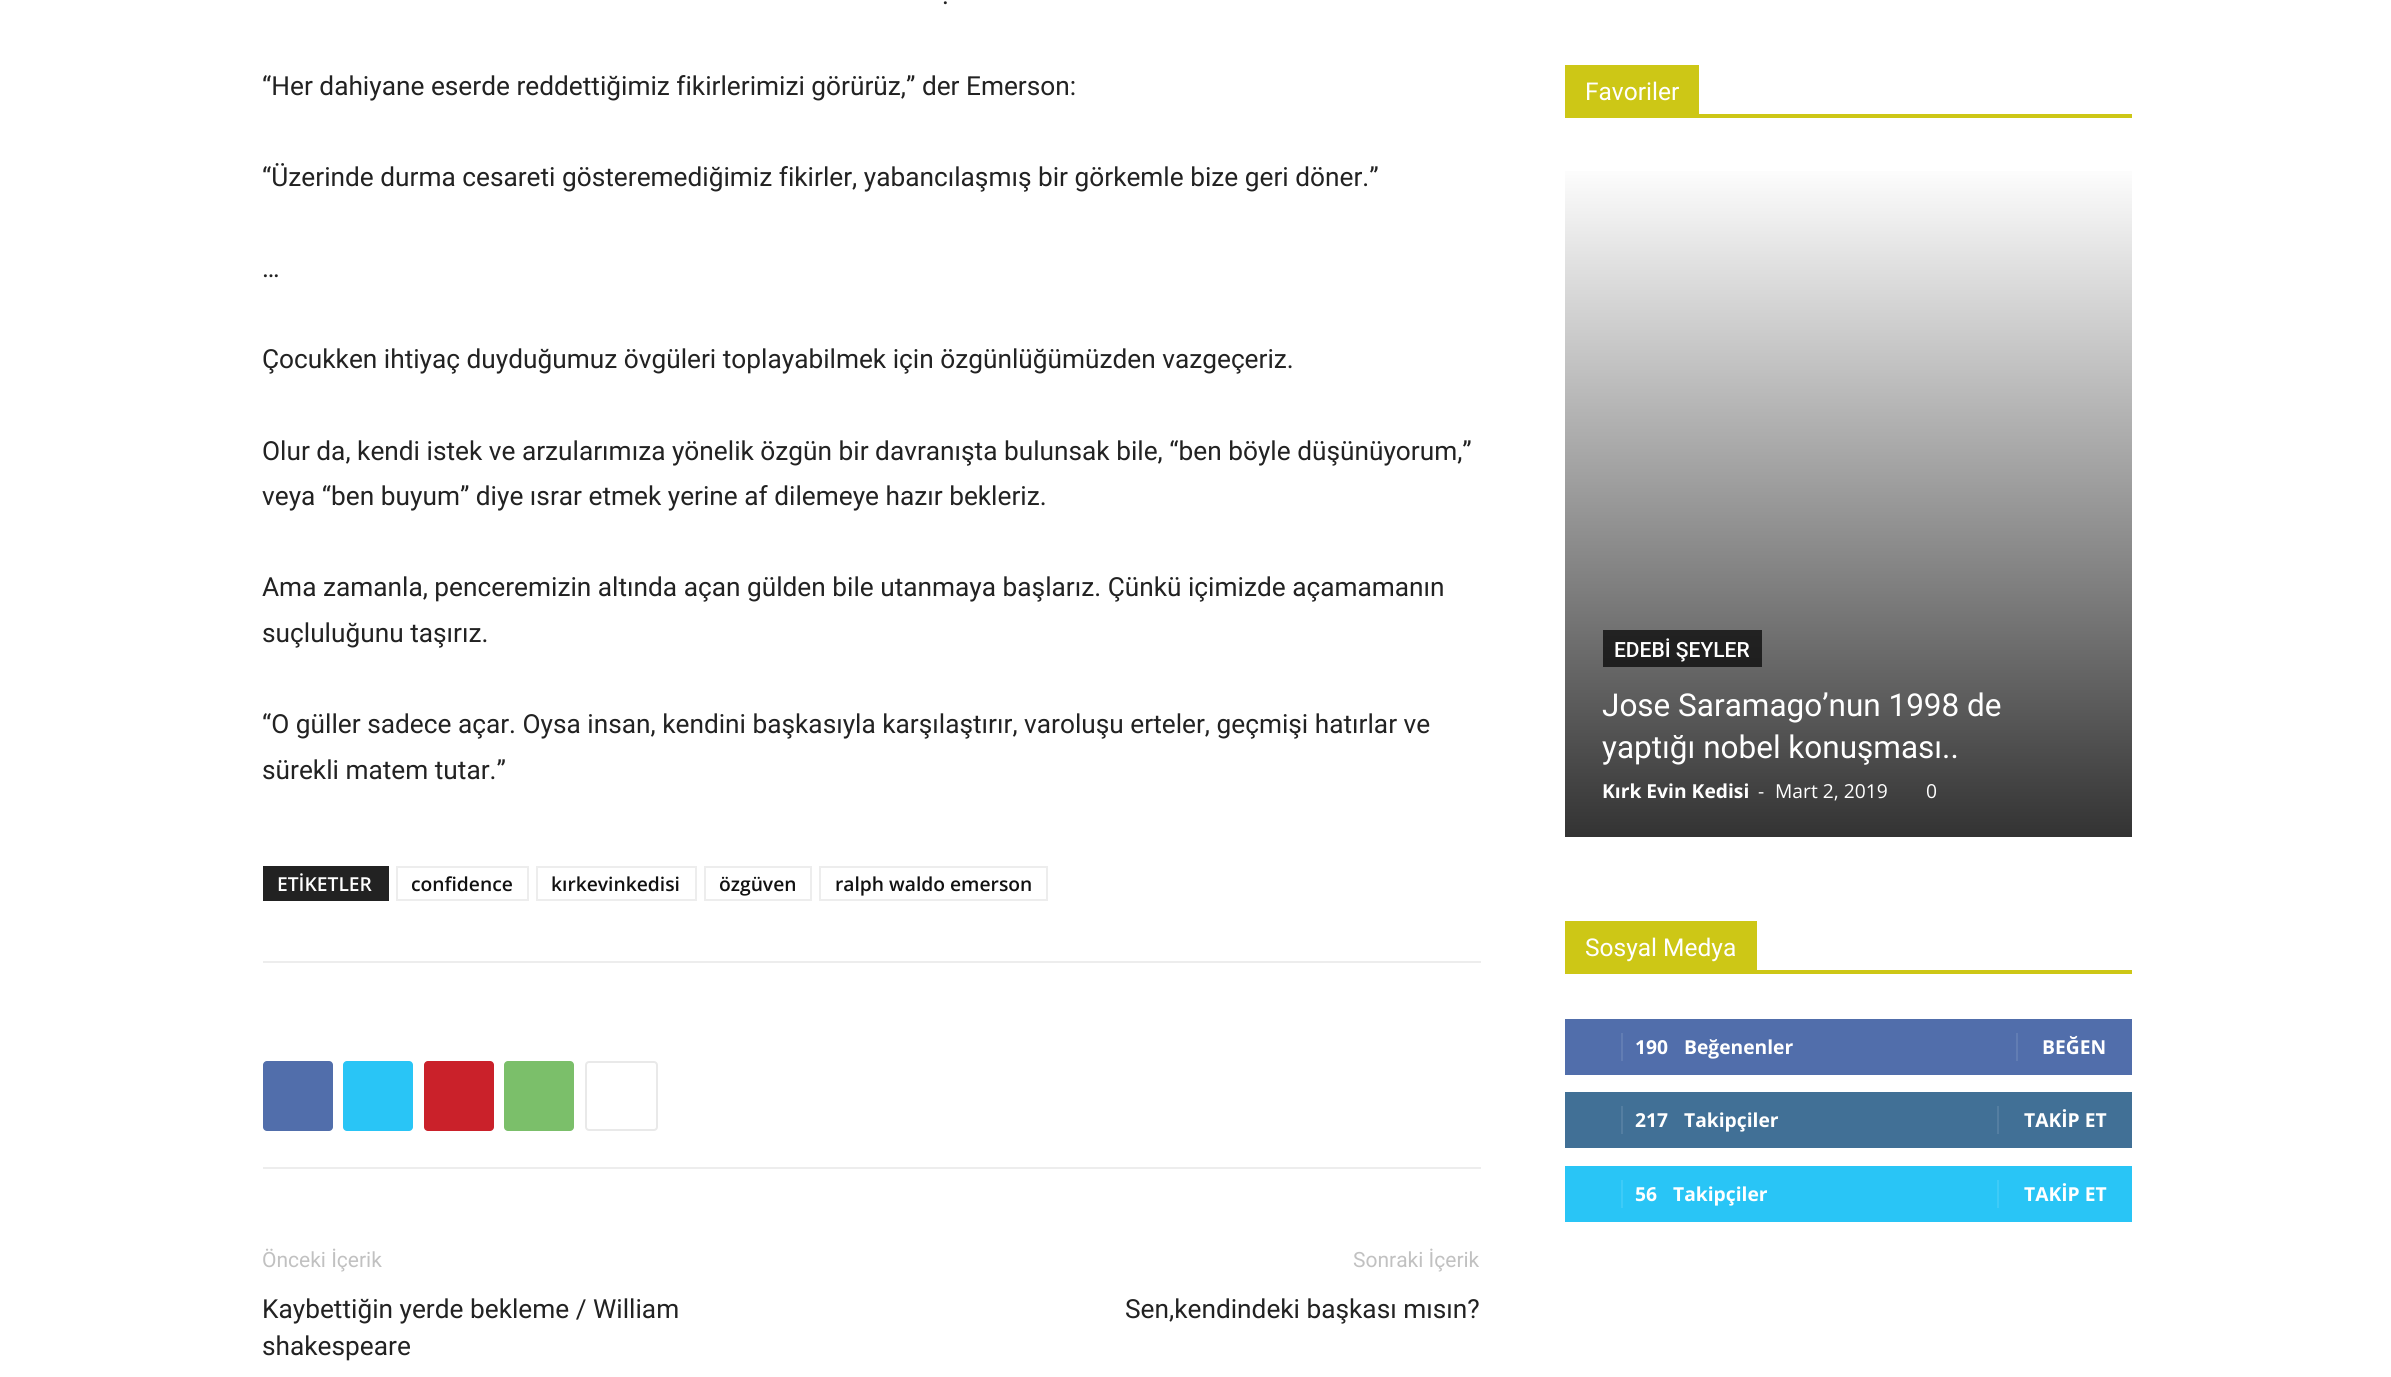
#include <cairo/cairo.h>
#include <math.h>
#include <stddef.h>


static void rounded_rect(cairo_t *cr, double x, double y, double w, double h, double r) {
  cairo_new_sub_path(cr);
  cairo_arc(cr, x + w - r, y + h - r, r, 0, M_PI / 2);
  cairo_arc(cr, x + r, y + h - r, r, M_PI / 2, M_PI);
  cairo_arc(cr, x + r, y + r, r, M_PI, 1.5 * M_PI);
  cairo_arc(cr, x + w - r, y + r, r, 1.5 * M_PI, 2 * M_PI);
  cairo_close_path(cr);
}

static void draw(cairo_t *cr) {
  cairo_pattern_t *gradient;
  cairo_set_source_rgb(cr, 1, 1, 1);
  cairo_paint(cr);
  cairo_set_source_rgb(cr, 34 / 255.0, 34 / 255.0, 34 / 255.0);
  cairo_rectangle(cr, 263, 866, 126, 35);
  cairo_fill(cr);
  cairo_rectangle(cr, 397, 867, 131, 33);
  cairo_set_source_rgb(cr, 237 / 255.0, 237 / 255.0, 237 / 255.0);
  cairo_stroke(cr);
  cairo_rectangle(cr, 537, 867, 159, 33);
  cairo_stroke(cr);
  cairo_rectangle(cr, 705, 867, 106, 33);
  cairo_stroke(cr);
  cairo_rectangle(cr, 820, 867, 227, 33);
  cairo_stroke(cr);
  cairo_rectangle(cr, 263, 961, 1218, 2);
  cairo_fill(cr);
  cairo_rectangle(cr, 263, 1167, 1218, 2);
  cairo_fill(cr);
  cairo_set_source_rgb(cr, 81 / 255.0, 110 / 255.0, 171 / 255.0);
  rounded_rect(cr, 263, 1061, 70, 70, 4);
  cairo_fill(cr);
  cairo_set_source_rgb(cr, 41 / 255.0, 197 / 255.0, 246 / 255.0);
  rounded_rect(cr, 343, 1061, 70, 70, 4);
  cairo_fill(cr);
  cairo_set_source_rgb(cr, 202 / 255.0, 33 / 255.0, 42 / 255.0);
  rounded_rect(cr, 424, 1061, 70, 70, 4);
  cairo_fill(cr);
  cairo_set_source_rgb(cr, 123 / 255.0, 191 / 255.0, 106 / 255.0);
  rounded_rect(cr, 504, 1061, 70, 70, 4);
  cairo_fill(cr);
  rounded_rect(cr, 586, 1062, 71, 68, 3);
  cairo_set_source_rgb(cr, 233 / 255.0, 233 / 255.0, 233 / 255.0);
  cairo_stroke(cr);
  cairo_set_source_rgb(cr, 205 / 255.0, 199 / 255.0, 22 / 255.0);
  cairo_rectangle(cr, 1565, 114, 567, 4);
  cairo_fill(cr);
  cairo_rectangle(cr, 1565, 65, 134, 49);
  cairo_fill(cr);
  gradient = cairo_pattern_create_linear(1848, 163, 1848, 837);
  cairo_pattern_add_color_stop_rgba(gradient, 0, 1, 1, 1, 1);
  cairo_pattern_add_color_stop_rgba(gradient, 1, 51 / 255.0, 51 / 255.0, 51 / 255.0, 1);
  cairo_set_source(cr, gradient);
  cairo_pattern_destroy(gradient);
  cairo_rectangle(cr, 1565, 171, 567, 666);
  cairo_fill(cr);
  gradient = cairo_pattern_create_linear(1848, 163, 1848, 837);
  cairo_pattern_add_color_stop_rgba(gradient, 0, 77 / 255.0, 77 / 255.0, 77 / 255.0, 1);
  cairo_pattern_add_color_stop_rgba(gradient, 1, 15 / 255.0, 15 / 255.0, 15 / 255.0, 1);
  cairo_set_source(cr, gradient);
  cairo_pattern_destroy(gradient);
  cairo_rectangle(cr, 1603, 630, 159, 37);
  cairo_fill(cr);
  cairo_set_source_rgb(cr, 205 / 255.0, 199 / 255.0, 22 / 255.0);
  cairo_rectangle(cr, 1565, 970, 567, 4);
  cairo_fill(cr);
  cairo_rectangle(cr, 1565, 921, 192, 49);
  cairo_fill(cr);
  cairo_set_source_rgb(cr, 81 / 255.0, 110 / 255.0, 171 / 255.0);
  cairo_rectangle(cr, 1565, 1019, 567, 56);
  cairo_fill(cr);
  cairo_set_source_rgb(cr, 98 / 255.0, 125 / 255.0, 179 / 255.0);
  cairo_rectangle(cr, 1621, 1033, 2, 28);
  cairo_fill(cr);
  cairo_rectangle(cr, 2016, 1033, 2, 28);
  cairo_fill(cr);
  cairo_set_source_rgb(cr, 65 / 255.0, 112 / 255.0, 150 / 255.0);
  cairo_rectangle(cr, 1565, 1092, 567, 56);
  cairo_fill(cr);
  cairo_set_source_rgb(cr, 84 / 255.0, 126 / 255.0, 161 / 255.0);
  cairo_rectangle(cr, 1621, 1106, 2, 28);
  cairo_fill(cr);
  cairo_rectangle(cr, 1997, 1106, 2, 28);
  cairo_fill(cr);
  cairo_set_source_rgb(cr, 41 / 255.0, 197 / 255.0, 246 / 255.0);
  cairo_rectangle(cr, 1565, 1166, 567, 56);
  cairo_fill(cr);
  cairo_set_source_rgb(cr, 62 / 255.0, 203 / 255.0, 247 / 255.0);
  cairo_rectangle(cr, 1621, 1180, 2, 28);
  cairo_fill(cr);
  cairo_rectangle(cr, 1997, 1180, 2, 28);
  cairo_fill(cr);
  cairo_select_font_face(cr, "Roboto", CAIRO_FONT_SLANT_NORMAL, CAIRO_FONT_WEIGHT_NORMAL);
  cairo_set_font_size(cr, 26.25);
  cairo_set_source_rgb(cr, 34 / 255.0, 34 / 255.0, 34 / 255.0);
  cairo_move_to(cr, 942, 4);
  cairo_show_text(cr, ".");
  cairo_move_to(cr, 262, 95);
  cairo_show_text(cr, "“Her dahiyane eserde reddettiğimiz fikirlerimizi görürüz,” der Emerson:");
  cairo_move_to(cr, 262, 186);
  cairo_show_text(cr, "“Üzerinde durma cesareti gösteremediğimiz fikirler, yabancılaşmış bir görkemle bize geri döner.”");
  cairo_move_to(cr, 262, 277);
  cairo_show_text(cr, "…");
  cairo_move_to(cr, 262, 368);
  cairo_show_text(cr, "Çocukken ihtiyaç duyduğumuz övgüleri toplayabilmek için özgünlüğümüzden vazgeçeriz.");
  cairo_move_to(cr, 262, 460);
  cairo_show_text(cr, "Olur da, kendi istek ve arzularımıza yönelik özgün bir davranışta bulunsak bile, “ben böyle düşünüyorum,”");
  cairo_move_to(cr, 262, 505);
  cairo_show_text(cr, "veya “ben buyum” diye ısrar etmek yerine af dilemeye hazır bekleriz.");
  cairo_move_to(cr, 262, 596);
  cairo_show_text(cr, "Ama zamanla, penceremizin altında açan gülden bile utanmaya başlarız. Çünkü içimizde açamamanın");
  cairo_move_to(cr, 262, 642);
  cairo_show_text(cr, "suçluluğunu taşırız.");
  cairo_move_to(cr, 262, 733);
  cairo_show_text(cr, "“O güller sadece açar. Oysa insan, kendini başkasıyla karşılaştırır, varoluşu erteler, geçmişi hatırlar ve");
  cairo_move_to(cr, 262, 779);
  cairo_show_text(cr, "sürekli matem tutar.”");
  cairo_select_font_face(cr, "Open Sans SemiBold", CAIRO_FONT_SLANT_NORMAL, CAIRO_FONT_WEIGHT_NORMAL);
  cairo_set_font_size(cr, 19.25);
  cairo_set_source_rgb(cr, 1, 1, 1);
  cairo_move_to(cr, 277, 891);
  cairo_show_text(cr, "ETİKETLER");
  cairo_set_source_rgb(cr, 17 / 255.0, 17 / 255.0, 17 / 255.0);
  cairo_move_to(cr, 411, 891);
  cairo_show_text(cr, "confidence");
  cairo_move_to(cr, 551, 891);
  cairo_show_text(cr, "kırkevinkedisi");
  cairo_move_to(cr, 719, 891);
  cairo_show_text(cr, "özgüven");
  cairo_move_to(cr, 835, 891);
  cairo_show_text(cr, "ralph waldo emerson");
  cairo_select_font_face(cr, "Roboto", CAIRO_FONT_SLANT_NORMAL, CAIRO_FONT_WEIGHT_NORMAL);
  cairo_set_font_size(cr, 21);
  cairo_set_source_rgb(cr, 193 / 255.0, 193 / 255.0, 193 / 255.0);
  cairo_move_to(cr, 262, 1267);
  cairo_show_text(cr, "Önceki İçerik");
  cairo_set_font_size(cr, 26.25);
  cairo_set_source_rgb(cr, 34 / 255.0, 34 / 255.0, 34 / 255.0);
  cairo_move_to(cr, 262, 1318);
  cairo_show_text(cr, "Kaybettiğin yerde bekleme / William");
  cairo_move_to(cr, 262, 1355);
  cairo_show_text(cr, "shakespeare");
  cairo_set_font_size(cr, 21);
  cairo_set_source_rgb(cr, 193 / 255.0, 193 / 255.0, 193 / 255.0);
  cairo_move_to(cr, 1353, 1267);
  cairo_show_text(cr, "Sonraki İçerik");
  cairo_set_font_size(cr, 26.25);
  cairo_set_source_rgb(cr, 34 / 255.0, 34 / 255.0, 34 / 255.0);
  cairo_move_to(cr, 1125, 1318);
  cairo_show_text(cr, "Sen,kendindeki başkası mısın?");
  cairo_set_font_size(cr, 24.5);
  cairo_set_source_rgb(cr, 1, 1, 1);
  cairo_move_to(cr, 1585, 100);
  cairo_show_text(cr, "Favoriler");
  cairo_select_font_face(cr, "Roboto Medium", CAIRO_FONT_SLANT_NORMAL, CAIRO_FONT_WEIGHT_NORMAL);
  cairo_set_font_size(cr, 21);
  cairo_move_to(cr, 1614, 657);
  cairo_show_text(cr, "EDEBİ ŞEYLER");
  cairo_select_font_face(cr, "Roboto", CAIRO_FONT_SLANT_NORMAL, CAIRO_FONT_WEIGHT_NORMAL);
  cairo_set_font_size(cr, 31.5);
  cairo_move_to(cr, 1602, 716);
  cairo_show_text(cr, "Jose Saramago’nun 1998 de");
  cairo_move_to(cr, 1602, 758);
  cairo_show_text(cr, "yaptığı nobel konuşması..");
  cairo_select_font_face(cr, "Open Sans", CAIRO_FONT_SLANT_NORMAL, CAIRO_FONT_WEIGHT_BOLD);
  cairo_set_font_size(cr, 19.25);
  cairo_move_to(cr, 1602, 798);
  cairo_show_text(cr, "Kırk Evin Kedisi");
  cairo_select_font_face(cr, "Open Sans", CAIRO_FONT_SLANT_NORMAL, CAIRO_FONT_WEIGHT_NORMAL);
  cairo_move_to(cr, 1758, 798);
  cairo_show_text(cr, "-");
  cairo_move_to(cr, 1775, 798);
  cairo_show_text(cr, "Mart 2, 2019");
  cairo_move_to(cr, 1926, 798);
  cairo_show_text(cr, "0");
  cairo_select_font_face(cr, "Roboto", CAIRO_FONT_SLANT_NORMAL, CAIRO_FONT_WEIGHT_NORMAL);
  cairo_set_font_size(cr, 24.5);
  cairo_move_to(cr, 1585, 956);
  cairo_show_text(cr, "Sosyal Medya");
  cairo_select_font_face(cr, "Open Sans", CAIRO_FONT_SLANT_NORMAL, CAIRO_FONT_WEIGHT_BOLD);
  cairo_set_font_size(cr, 19.25);
  cairo_move_to(cr, 1635, 1054);
  cairo_show_text(cr, "190");
  cairo_move_to(cr, 1684, 1054);
  cairo_show_text(cr, "Beğenenler");
  cairo_move_to(cr, 2042, 1054);
  cairo_show_text(cr, "BEĞEN");
  cairo_move_to(cr, 1635, 1127);
  cairo_show_text(cr, "217");
  cairo_move_to(cr, 1684, 1127);
  cairo_show_text(cr, "Takipçiler");
  cairo_move_to(cr, 2024, 1127);
  cairo_show_text(cr, "TAKİP ET");
  cairo_move_to(cr, 1635, 1201);
  cairo_show_text(cr, "56");
  cairo_move_to(cr, 1673, 1201);
  cairo_show_text(cr, "Takipçiler");
  cairo_move_to(cr, 2024, 1201);
  cairo_show_text(cr, "TAKİP ET");
}

int main(void) {
  cairo_surface_t *surface = cairo_image_surface_create(CAIRO_FORMAT_RGB24, 2391, 1377);
  cairo_t *cr = cairo_create(surface);
  cairo_font_options_t *options = cairo_font_options_create();
  cairo_font_options_set_hint_metrics(options, CAIRO_HINT_METRICS_OFF);
  cairo_font_options_set_hint_style(options, CAIRO_HINT_STYLE_NONE);
  cairo_set_font_options(cr, options);
  cairo_set_miter_limit(cr, 4);
  draw(cr);
  cairo_surface_write_to_png(surface, "out.png");
  cairo_font_options_destroy(options);
  cairo_destroy(cr);
  cairo_surface_destroy(surface);
  return 0;
}
